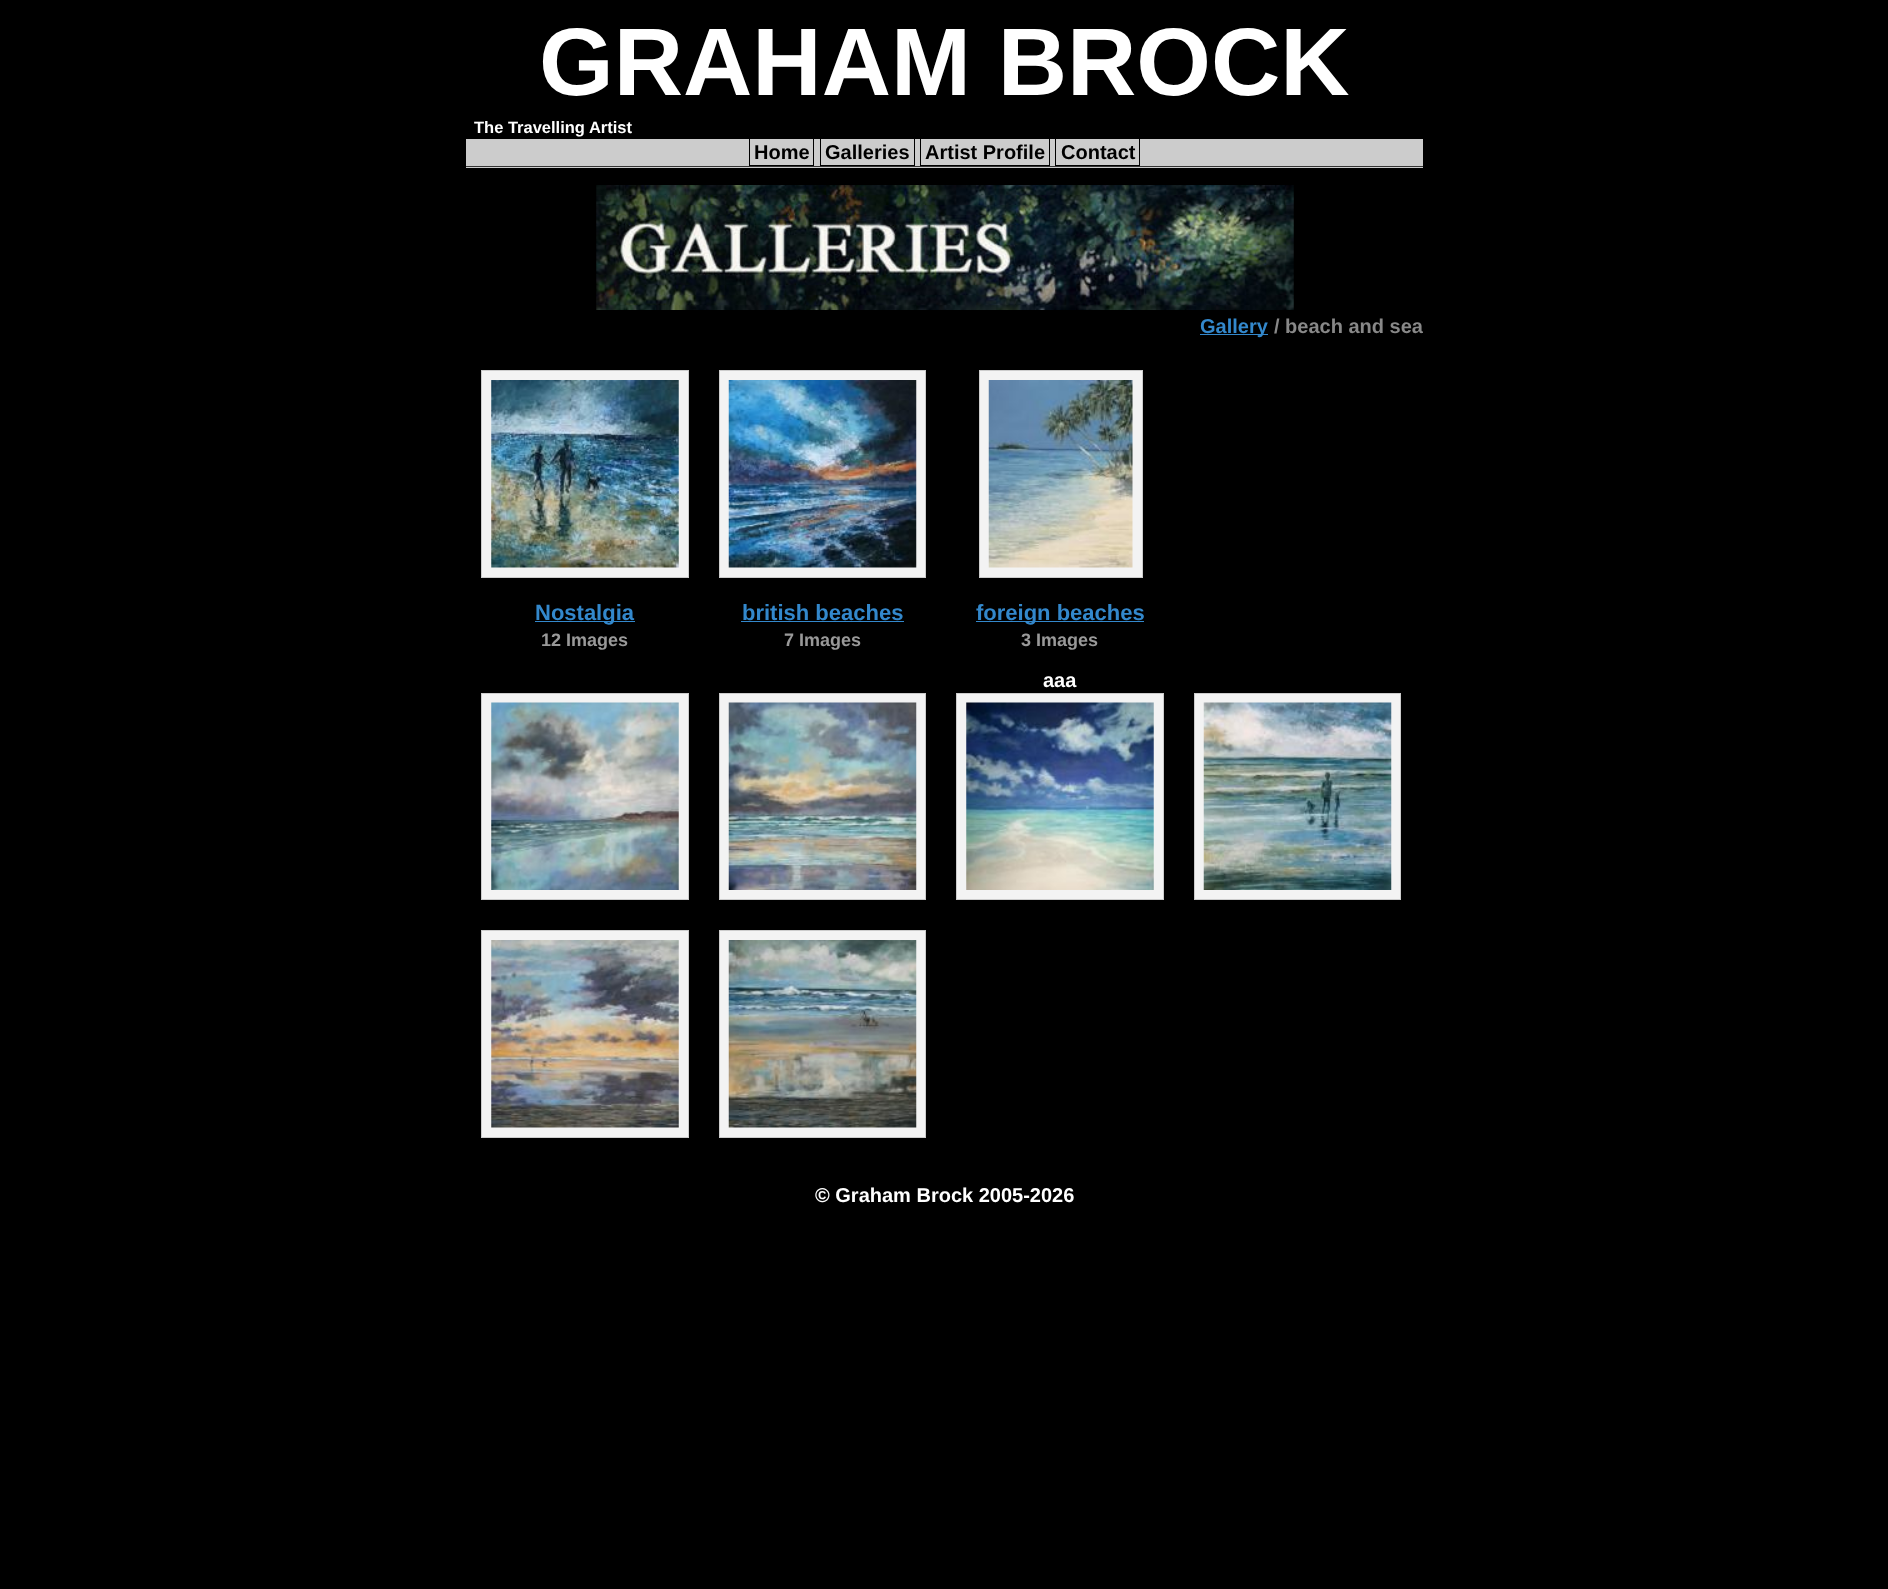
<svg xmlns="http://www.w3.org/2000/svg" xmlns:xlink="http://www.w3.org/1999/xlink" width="1888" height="1589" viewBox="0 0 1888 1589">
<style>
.cls-1{font:bold 96px Liberation Sans;fill:#ffffff}
.cls-2{font:bold 16.5px Liberation Sans;fill:#ffffff}
.cls-3{font:bold 20px Liberation Sans;fill:#000000}
.cls-4{font:bold 20px Liberation Sans;fill:#3388cc}
.cls-5{font:bold 20px Liberation Sans;fill:#888888}
.cls-6{font:bold 22px Liberation Sans;fill:#3388cc}
.cls-7{font:bold 18px Liberation Sans;fill:#999999}
.cls-8{font:bold 20px Liberation Sans;fill:#ffffff}
</style>
<rect width="100%" height="100%" fill="#000000"/>
<rect fill="#cccccc" x="466" y="139" width="957" height="29"/>
<rect fill="#333333" x="466" y="166" width="957" height="1"/>
<rect fill="none" stroke="#000000" x="749.5" y="138.5" width="64" height="27"/>
<rect fill="none" stroke="#000000" x="820.5" y="138.5" width="94" height="27"/>
<rect fill="none" stroke="#000000" x="920.5" y="138.5" width="129" height="27"/>
<rect fill="none" stroke="#000000" x="1055.5" y="138.5" width="84" height="27"/>
<image xlink:href="image0.png" x="596" y="185" width="698" height="125"/>
<rect fill="#3388cc" x="1200" y="334" width="68" height="1"/>
<rect fill="#f3f3f3" stroke="#cccccc" x="481.5" y="370.5" width="207" height="207"/>
<image xlink:href="image1.png" x="491" y="380" width="188" height="188"/>
<rect fill="#3388cc" x="535" y="621" width="100" height="1"/>
<rect fill="#f3f3f3" stroke="#cccccc" x="719.5" y="370.5" width="206" height="207"/>
<image xlink:href="image2.png" x="728" y="380" width="189" height="188"/>
<rect fill="#3388cc" x="741" y="621" width="163" height="1"/>
<rect fill="#f3f3f3" stroke="#cccccc" x="979.5" y="370.5" width="163" height="207"/>
<image xlink:href="image3.png" x="988" y="380" width="145" height="188"/>
<rect fill="#3388cc" x="976" y="621" width="168" height="1"/>
<rect fill="#f3f3f3" stroke="#cccccc" x="481.5" y="693.5" width="207" height="206"/>
<image xlink:href="image4.png" x="491" y="702" width="188" height="188"/>
<rect fill="#f3f3f3" stroke="#cccccc" x="719.5" y="693.5" width="206" height="206"/>
<image xlink:href="image5.png" x="728" y="702" width="189" height="188"/>
<rect fill="#f3f3f3" stroke="#cccccc" x="956.5" y="693.5" width="207" height="206"/>
<image xlink:href="image6.png" x="966" y="702" width="188" height="188"/>
<rect fill="#f3f3f3" stroke="#cccccc" x="1194.5" y="693.5" width="206" height="206"/>
<image xlink:href="image7.png" x="1203" y="702" width="189" height="188"/>
<rect fill="#f3f3f3" stroke="#cccccc" x="481.5" y="930.5" width="207" height="207"/>
<image xlink:href="image8.png" x="491" y="940" width="188" height="188"/>
<rect fill="#f3f3f3" stroke="#cccccc" x="719.5" y="930.5" width="206" height="207"/>
<image xlink:href="image9.png" x="728" y="940" width="189" height="188"/>
<text class="cls-1" x="539" y="95">GRAHAM BROCK</text>
<text class="cls-2" x="474" y="133">The Travelling Artist</text>
<text class="cls-3" x="754" y="159">Home</text>
<text class="cls-3" x="825" y="159">Galleries</text>
<text class="cls-3" x="925" y="159">Artist Profile</text>
<text class="cls-3" x="1061" y="159">Contact</text>
<text class="cls-4" x="1200" y="333">Gallery</text>
<text class="cls-5" x="1274" y="333">/ beach and sea</text>
<text class="cls-6" x="535" y="620">Nostalgia</text>
<text class="cls-7" x="541" y="646">12 Images</text>
<text class="cls-6" x="742" y="620">british beaches</text>
<text class="cls-7" x="784" y="646">7 Images</text>
<text class="cls-6" x="976" y="620">foreign beaches</text>
<text class="cls-7" x="1021" y="646">3 Images</text>
<text class="cls-8" x="1043" y="687">aaa</text>
<text class="cls-8" x="815" y="1202">© Graham Brock 2005-2026</text>
</svg>
